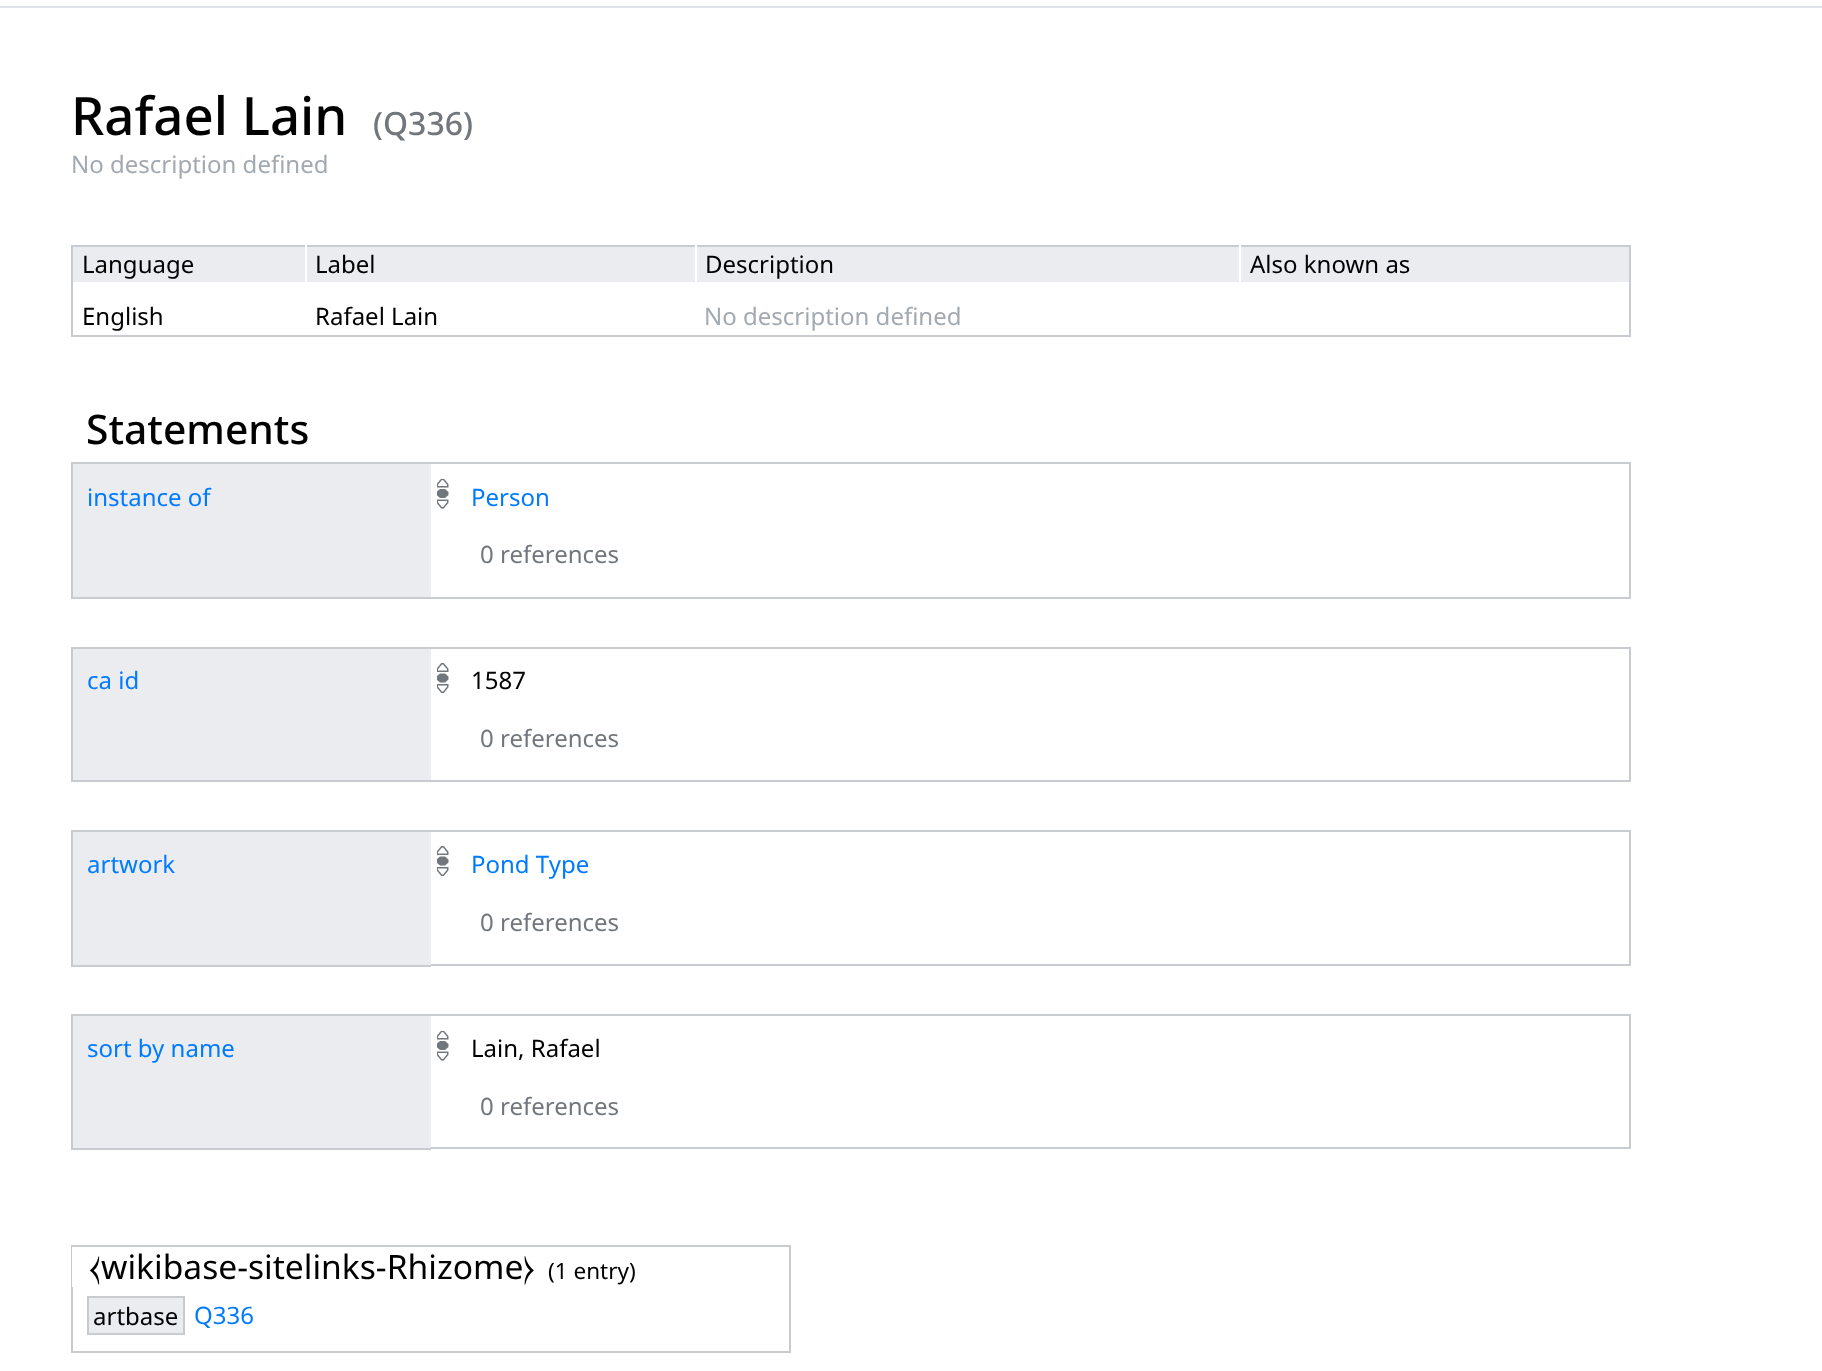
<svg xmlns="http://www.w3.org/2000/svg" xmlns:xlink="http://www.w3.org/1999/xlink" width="1822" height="1371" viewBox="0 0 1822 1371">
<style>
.cls-1{font:500 52.75px Noto Sans;fill:#000000}
.cls-2{font:500 32px Noto Sans;fill:#72777d}
.cls-3{font:24px Noto Sans;fill:#a2a9b1}
.cls-4{font:24px Noto Sans;fill:#000000}
.cls-5{font:500 40.75px Noto Sans;fill:#000000}
.cls-6{font:24px Noto Sans;fill:#007bff}
.cls-7{font:24px Noto Sans;fill:#72777d}
.cls-8{font:33.6px FreeSerif;fill:#000000}
.cls-9{font:33.6px Noto Sans;fill:#000000}
.cls-10{font:22.5px Noto Sans;fill:#000000}
</style>
<rect width="100%" height="100%" fill="#ffffff"/>
<rect fill="#dee2e6" x="0" y="6" width="1822" height="2"/>
<rect fill="#c8ccd1" x="71" y="245" width="1560" height="2"/>
<rect fill="#c8ccd1" x="1629" y="245" width="2" height="91"/>
<rect fill="#c8ccd1" x="71" y="335" width="1560" height="2"/>
<rect fill="#c8ccd1" x="71" y="245" width="2" height="91"/>
<rect fill="#eaecf0" x="73" y="247" width="232" height="35"/>
<rect fill="#ffffff" x="305" y="245" width="2" height="2"/>
<rect fill="#eaecf0" x="307" y="247" width="388" height="35"/>
<rect fill="#ffffff" x="695" y="245" width="2" height="2"/>
<rect fill="#eaecf0" x="697" y="247" width="542" height="35"/>
<rect fill="#ffffff" x="1239" y="245" width="2" height="2"/>
<rect fill="#eaecf0" x="1241" y="247" width="388" height="35"/>
<rect fill="none" stroke="#c8ccd1" stroke-width="2" x="72" y="463" width="1558" height="135"/>
<rect fill="#eaecf0" x="73" y="464" width="358" height="133"/>
<image xlink:href="image0.png" x="437" y="479" width="12" height="30"/>
<rect fill="none" stroke="#c8ccd1" stroke-width="2" x="72" y="648" width="1558" height="133"/>
<rect fill="#eaecf0" x="73" y="649" width="358" height="131"/>
<image xlink:href="image1.png" x="437" y="663" width="12" height="30"/>
<rect fill="none" stroke="#c8ccd1" stroke-width="2" x="72" y="831" width="1558" height="134"/>
<rect fill="#eaecf0" x="73" y="832" width="358" height="133"/>
<rect fill="#c8ccd1" x="71" y="966" width="360" height="1"/>
<image xlink:href="image1.png" x="437" y="846" width="12" height="30"/>
<rect fill="none" stroke="#c8ccd1" stroke-width="2" x="72" y="1015" width="1558" height="133"/>
<rect fill="#eaecf0" x="73" y="1016" width="358" height="132"/>
<rect fill="#c8ccd1" x="71" y="1149" width="360" height="1"/>
<image xlink:href="image0.png" x="437" y="1031" width="12" height="30"/>
<rect fill="none" stroke="#c8ccd1" stroke-width="2" x="72" y="1246" width="718" height="106"/>
<rect fill="#ffffff" x="72" y="1247" width="1" height="40"/>
<rect fill="#eaecf0" stroke="#c8ccd1" stroke-width="2" x="88" y="1297" width="96" height="37"/>
<text class="cls-1" x="71" y="135">Rafael Lain</text>
<text class="cls-2" x="373" y="135">(Q336)</text>
<text class="cls-3" x="71" y="173">No description defined</text>
<text class="cls-4" x="82" y="273">Language</text>
<text class="cls-4" x="315" y="273">Label</text>
<text class="cls-4" x="705" y="273">Description</text>
<text class="cls-4" x="1250" y="273">Also known as</text>
<text class="cls-4" x="82" y="325">English</text>
<text class="cls-4" x="315" y="325">Rafael Lain</text>
<text class="cls-3" x="704" y="325">No description defined</text>
<text class="cls-5" x="86" y="444">Statements</text>
<text class="cls-6" x="87" y="506">instance of</text>
<text class="cls-6" x="471" y="506">Person</text>
<text class="cls-7" x="480" y="563">0 references</text>
<text class="cls-6" x="87" y="689">ca id</text>
<text class="cls-4" x="471" y="689">1587</text>
<text class="cls-7" x="480" y="747">0 references</text>
<text class="cls-6" x="87" y="873">artwork</text>
<text class="cls-6" x="471" y="873">Pond Type</text>
<text class="cls-7" x="480" y="931">0 references</text>
<text class="cls-6" x="87" y="1057">sort by name</text>
<text class="cls-4" x="471" y="1057">Lain, Rafael</text>
<text class="cls-7" x="480" y="1115">0 references</text>
<text class="cls-8" x="89" y="1279">⧼</text>
<text class="cls-9" x="101" y="1279">wikibase-sitelinks-Rhizome</text>
<text class="cls-8" x="523" y="1279">⧽</text>
<text class="cls-10" x="548" y="1279">(1 entry)</text>
<text class="cls-4" x="93" y="1325">artbase</text>
<text class="cls-6" x="194" y="1324">Q336</text>
</svg>
